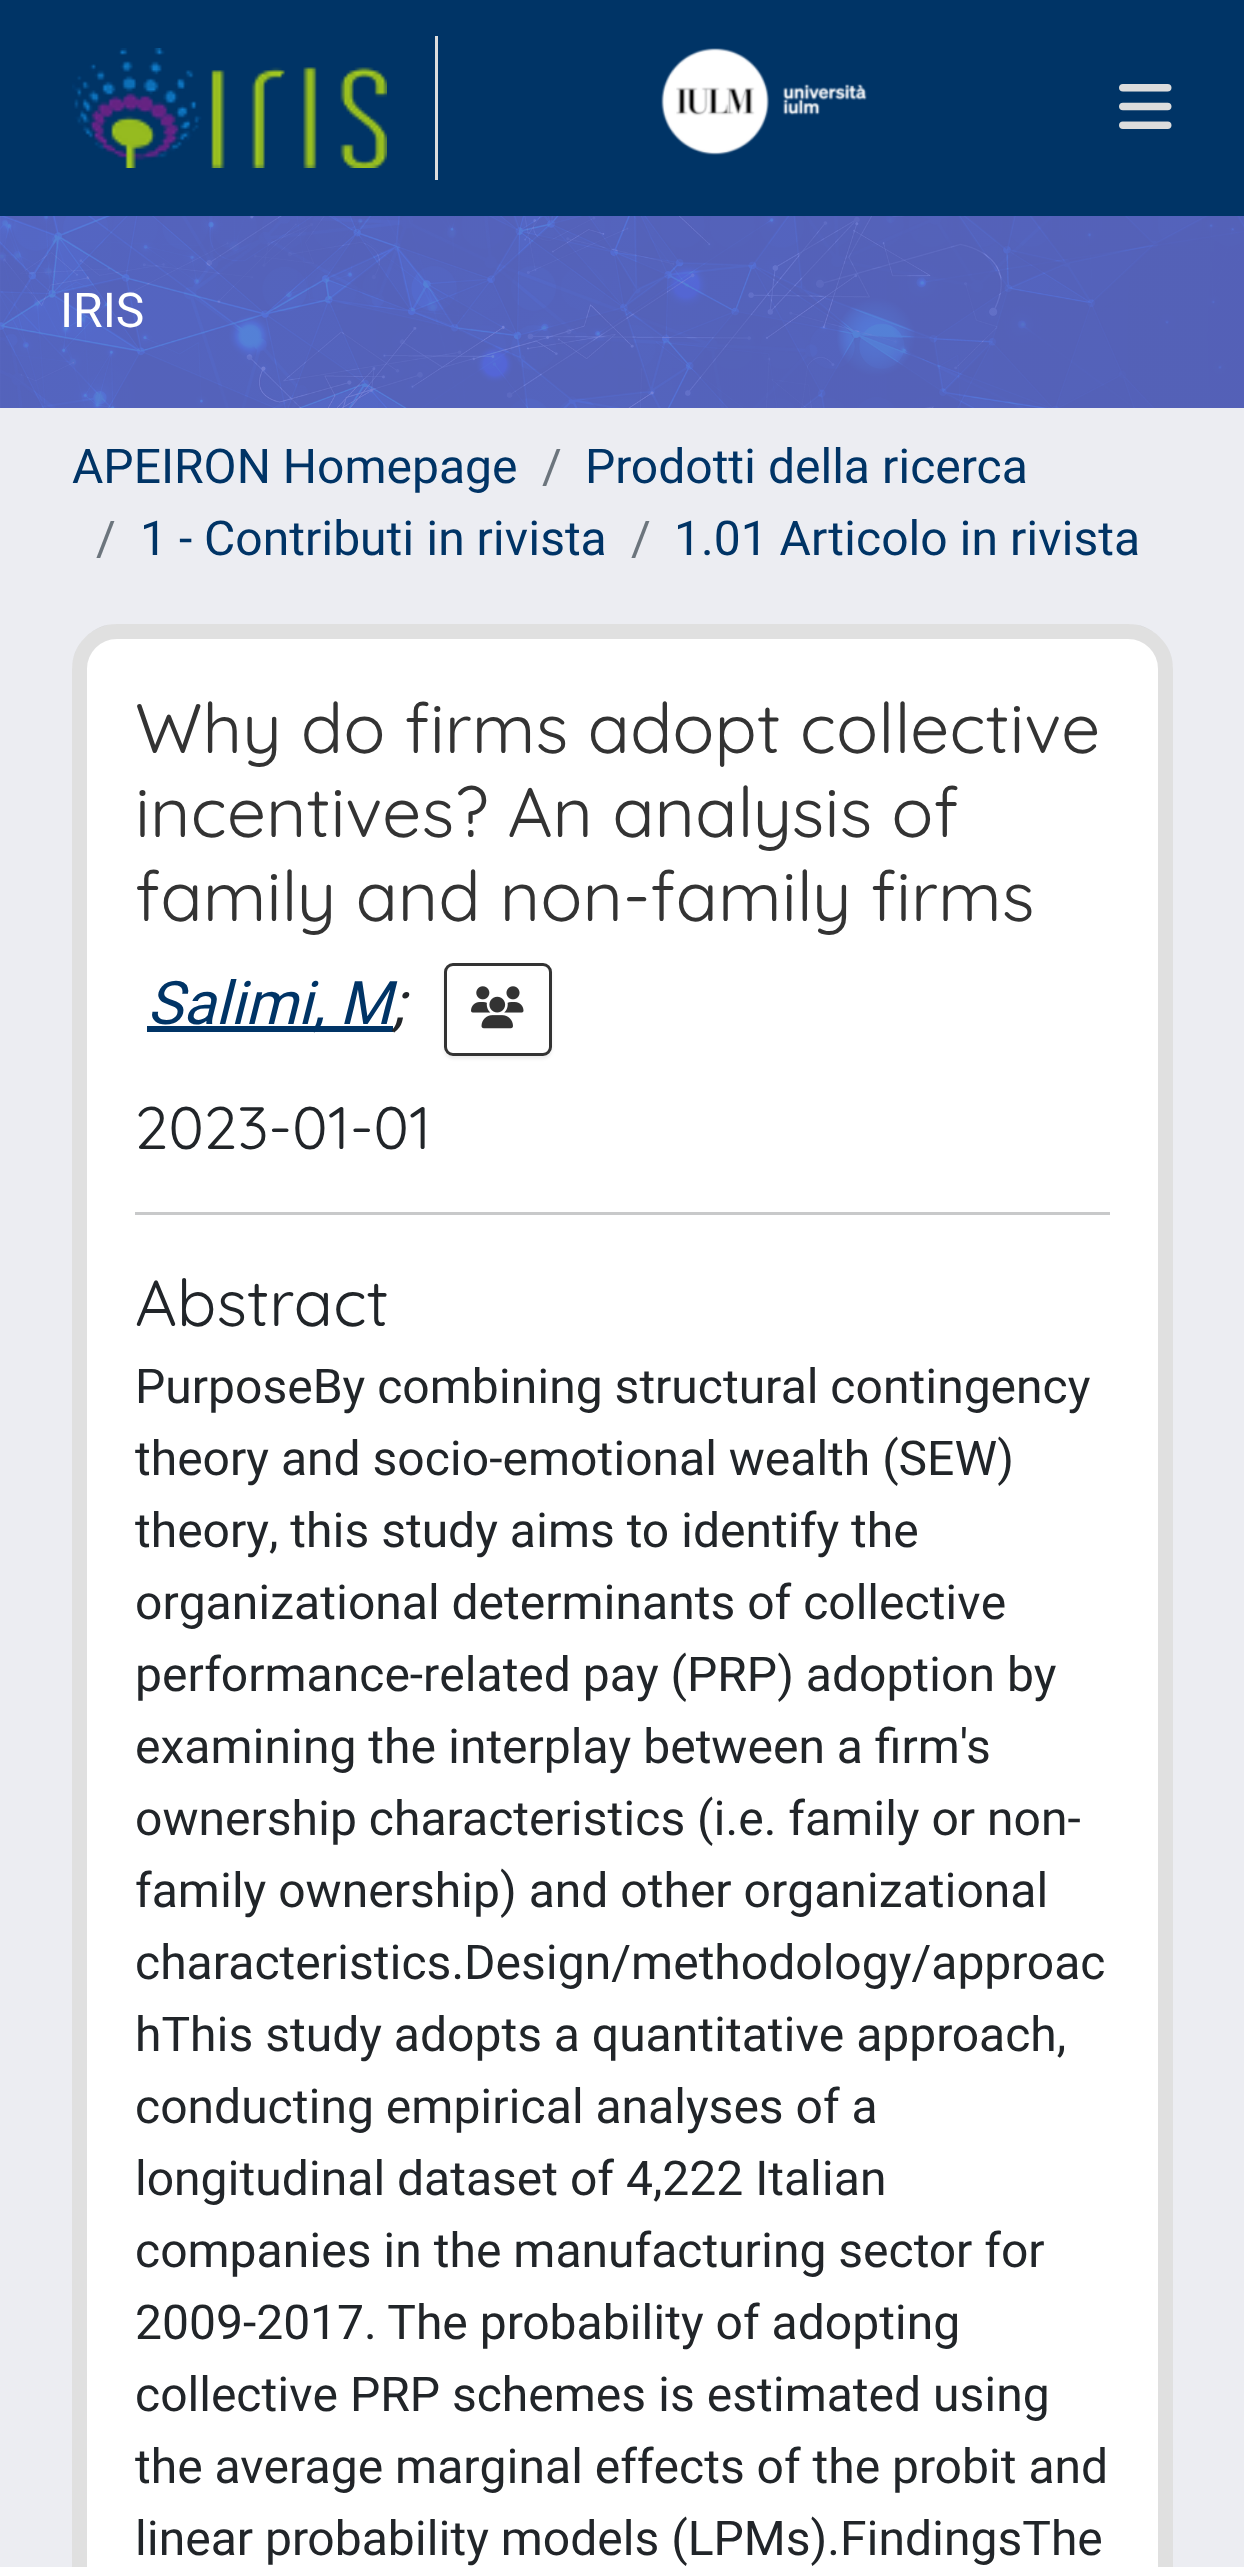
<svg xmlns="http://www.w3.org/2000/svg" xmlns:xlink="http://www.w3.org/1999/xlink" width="1244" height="2567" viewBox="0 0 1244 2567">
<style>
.cls-1{font:48px Heebo;fill:#ffffff}
.cls-2{font:48px Heebo;fill:#003466}
.cls-3{font:48px Heebo;fill:#6c757d}
.cls-4{font:69.9px Quicksand;fill:#333333}
.cls-5{font:italic 60px Heebo;fill:#003466}
.cls-6{font:italic 60px Heebo;fill:#212529}
.cls-7{font:60px Quicksand;fill:#212529}
.cls-8{font:65px Quicksand;fill:#212529}
.cls-9{font:48px Heebo;fill:#212529}
</style>
<defs>
<clipPath id="clip1"><path d="M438 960H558V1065H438ZM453 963H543C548 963 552 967 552 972V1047C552 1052 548 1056 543 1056H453C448 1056 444 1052 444 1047V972C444 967 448 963 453 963Z" clip-rule="evenodd"/></clipPath>
</defs>
<rect width="100%" height="100%" fill="#ecedf2"/>
<rect fill="#003466" x="0" y="0" width="1244" height="216"/>
<rect fill="#dddddd" x="435" y="36" width="3" height="144"/>
<image xlink:href="image0.png" x="72" y="48" width="315" height="120"/>
<image xlink:href="image1.png" x="661" y="48" width="206" height="107"/>
<image xlink:href="image2.png" x="1119" y="84" width="53" height="45"/>
<image xlink:href="image3.png" x="0" y="216" width="1244" height="192"/>
<rect fill="#ffffff" x="72" y="624" width="1101" height="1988" rx="45"/>
<rect fill="none" stroke="#000000" stroke-opacity="0.12" stroke-width="15" x="79.5" y="631.5" width="1086" height="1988" rx="37.5"/>
<rect fill="#003466" x="147" y="1026" width="246" height="6"/>
<g clip-path="url(#clip1)">
<rect fill="#000000" fill-opacity="0.07" filter="blur(1.5px)" x="444" y="966" width="108" height="93" rx="9"/>
</g>
<rect fill="none" stroke="#333333" stroke-width="3" x="445.5" y="964.5" width="105" height="90" rx="7.5"/>
<image xlink:href="image4.png" x="471" y="986" width="53" height="43"/>
<rect fill="#c8c9ca" x="135" y="1212" width="975" height="3"/>
<text class="cls-1" x="60" y="327">IRIS</text>
<text class="cls-2" x="72" y="483">APEIRON Homepage</text>
<text class="cls-3" x="542" y="483">/</text>
<text class="cls-2" x="585" y="483">Prodotti della ricerca</text>
<text class="cls-3" x="96" y="555">/</text>
<text class="cls-2" x="140" y="555">1 - Contributi in rivista</text>
<text class="cls-3" x="631" y="555">/</text>
<text class="cls-2" x="674" y="555">1.01 Articolo in rivista</text>
<text class="cls-4"><tspan x="135" y="753">Why do firms adopt collective</tspan><tspan x="135" y="837">incentives? An analysis of</tspan><tspan x="135" y="921">family and non-family firms</tspan></text>
<text class="cls-5" x="147" y="1024">Salimi, M</text>
<text class="cls-6" x="392" y="1024">;</text>
<text class="cls-7" x="135" y="1149">2023-01-01</text>
<text class="cls-8" x="135" y="1326">Abstract</text>
<text class="cls-9"><tspan x="135" y="1403">PurposeBy combining structural contingency</tspan><tspan x="135" y="1475">theory and socio-emotional wealth (SEW)</tspan><tspan x="135" y="1547">theory, this study aims to identify the</tspan><tspan x="135" y="1619">organizational determinants of collective</tspan><tspan x="135" y="1691">performance-related pay (PRP) adoption by</tspan><tspan x="135" y="1763">examining the interplay between a firm's</tspan><tspan x="135" y="1835">ownership characteristics (i.e. family or non-</tspan><tspan x="135" y="1907">family ownership) and other organizational</tspan><tspan x="135" y="1979">characteristics.Design/methodology/approac</tspan><tspan x="135" y="2051">hThis study adopts a quantitative approach,</tspan><tspan x="135" y="2123">conducting empirical analyses of a</tspan><tspan x="135" y="2195">longitudinal dataset of 4,222 Italian</tspan><tspan x="135" y="2267">companies in the manufacturing sector for</tspan><tspan x="135" y="2339">2009-2017. The probability of adopting</tspan><tspan x="135" y="2411">collective PRP schemes is estimated using</tspan><tspan x="135" y="2483">the average marginal effects of the probit and</tspan><tspan x="135" y="2555">linear probability models (LPMs).FindingsThe</tspan></text>
</svg>
